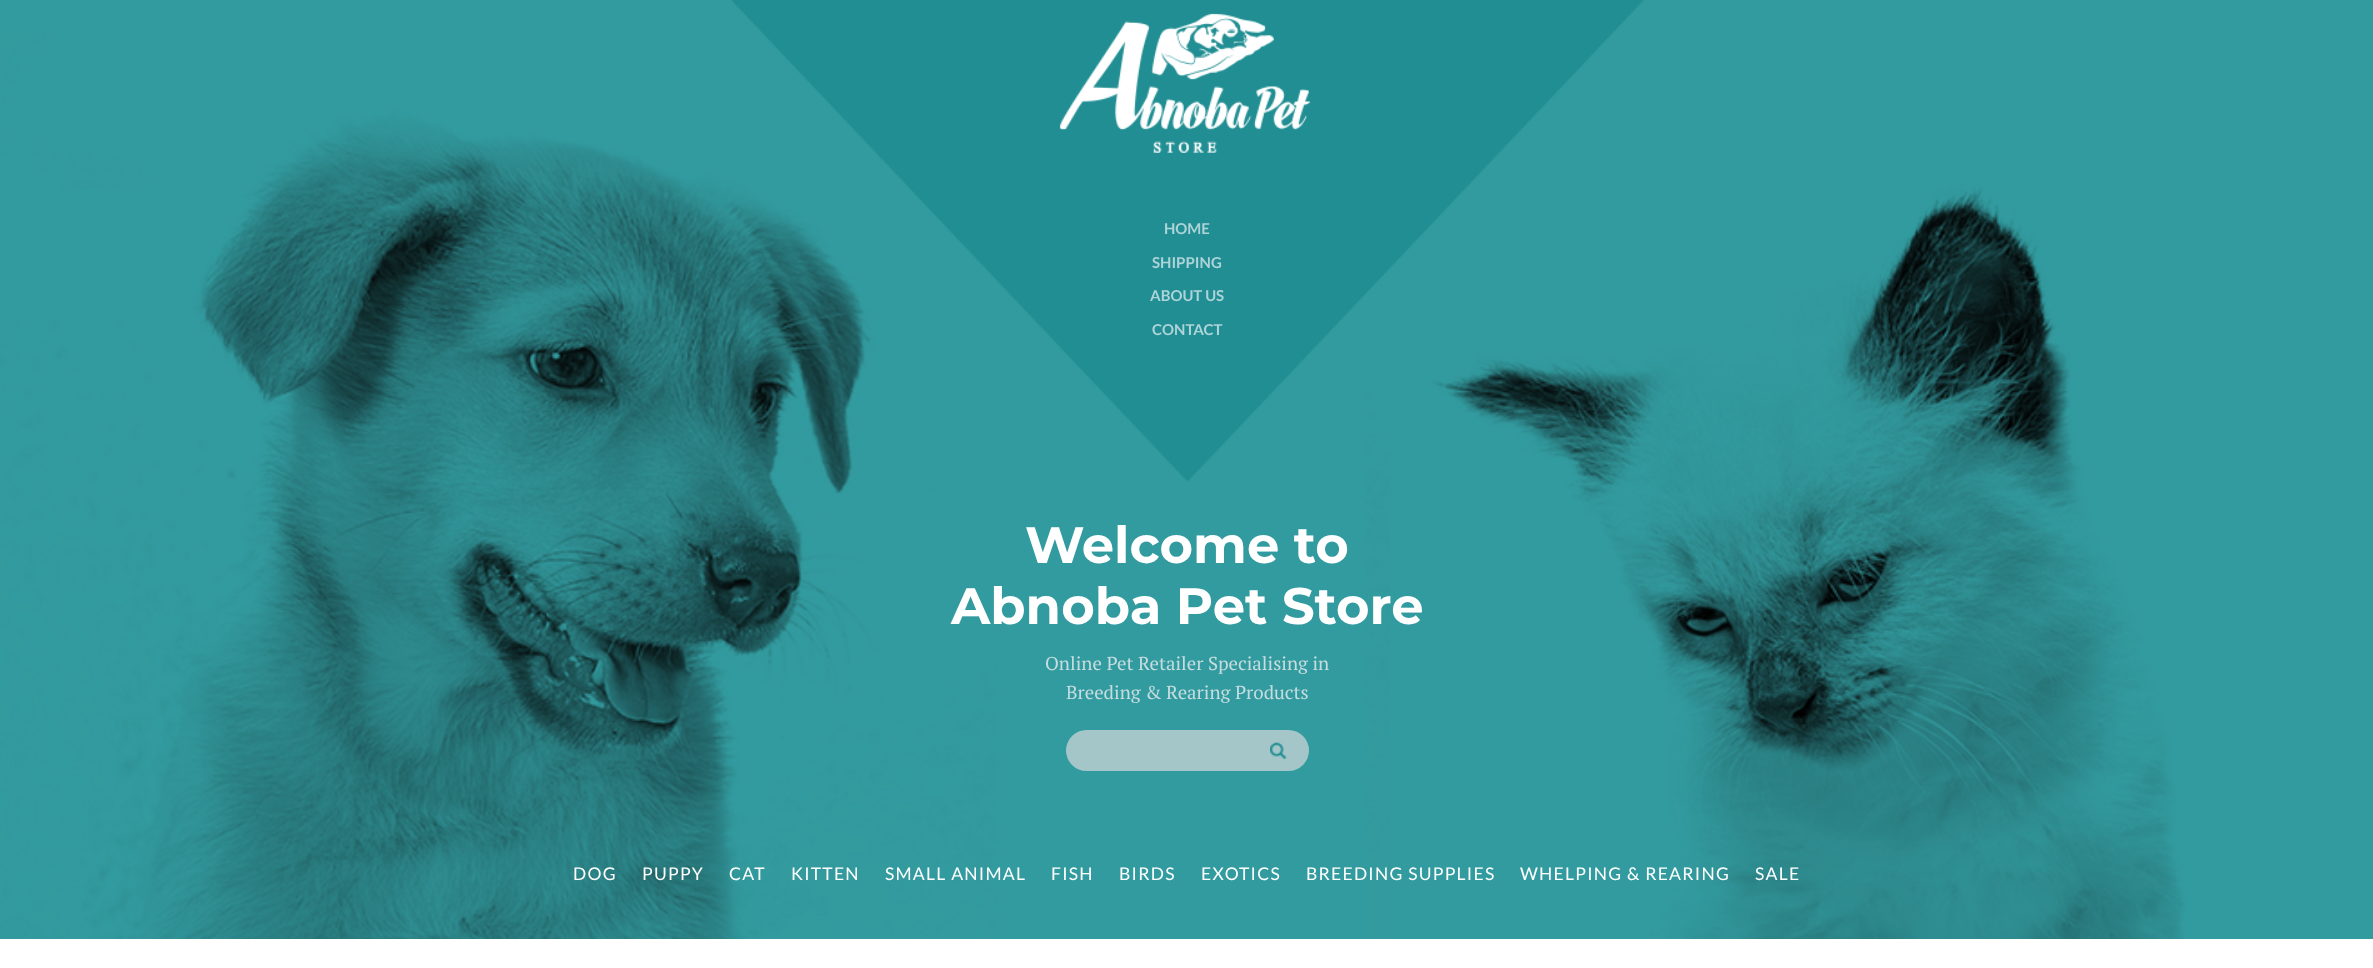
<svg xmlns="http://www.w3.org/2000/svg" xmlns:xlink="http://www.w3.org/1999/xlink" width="2373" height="968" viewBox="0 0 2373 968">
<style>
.cls-1{font:bold 15px Lato;fill:#add4d9}
.cls-2{font:bold 51.25px Montserrat;fill:#ffffff}
.cls-3{font:18.75px PT Serif;fill:#c6dddf}
.cls-4{font:17.5px Lato;letter-spacing:1.25px;fill:#ffffff}
</style>
<rect width="100%" height="100%" fill="#ffffff"/>
<image xlink:href="image0.png" x="0" y="0" width="2373" height="939"/>
<image xlink:href="image1.png" x="731" y="0" width="913" height="482"/>
<image xlink:href="image2.png" x="1059" y="13" width="252" height="140"/>
<rect fill="#a5c6c8" x="1066" y="730" width="243" height="41" rx="20.5"/>
<image xlink:href="image3.png" x="1270" y="742" width="17" height="17"/>
<text class="cls-1" x="1164" y="234">HOME</text>
<text class="cls-1" x="1152" y="268">SHIPPING</text>
<text class="cls-1" x="1150" y="301">ABOUT US</text>
<text class="cls-1" x="1152" y="335">CONTACT</text>
<text class="cls-2" x="1025" y="563">Welcome to</text>
<text class="cls-2" x="951" y="624">Abnoba Pet Store</text>
<text class="cls-3" x="1045" y="670">Online Pet Retailer Specialising in</text>
<text class="cls-3" x="1066" y="699">Breeding &amp; Rearing Products</text>
<text class="cls-4" x="573" y="880">DOG</text>
<text class="cls-4" x="642" y="880">PUPPY</text>
<text class="cls-4" x="729" y="880">CAT</text>
<text class="cls-4" x="791" y="880">KITTEN</text>
<text class="cls-4" x="885" y="880">SMALL ANIMAL</text>
<text class="cls-4" x="1051" y="880">FISH</text>
<text class="cls-4" x="1119" y="880">BIRDS</text>
<text class="cls-4" x="1201" y="880">EXOTICS</text>
<text class="cls-4" x="1306" y="880">BREEDING SUPPLIES</text>
<text class="cls-4" x="1520" y="880">WHELPING &amp; REARING</text>
<text class="cls-4" x="1755" y="880">SALE</text>
</svg>
